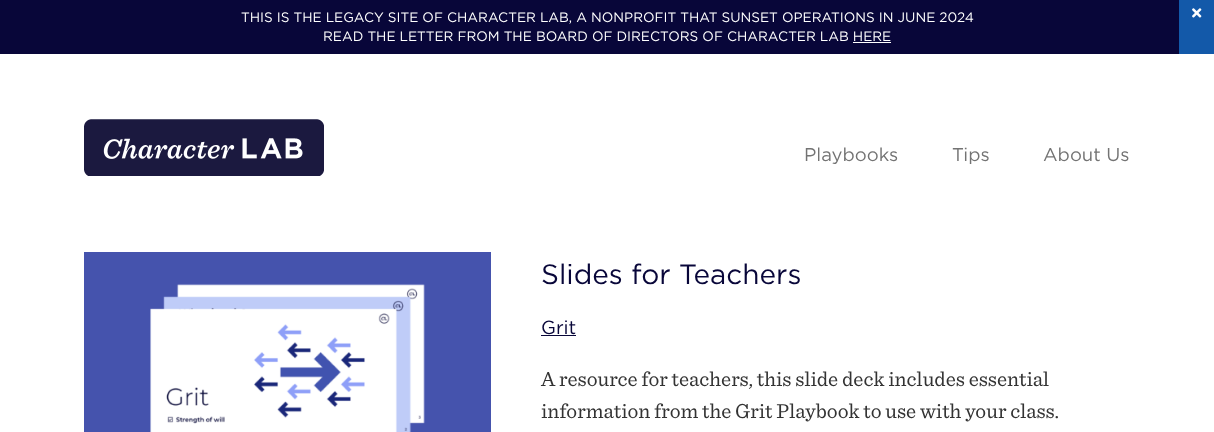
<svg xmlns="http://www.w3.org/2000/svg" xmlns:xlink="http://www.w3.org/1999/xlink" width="1214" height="432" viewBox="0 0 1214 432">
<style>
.cls-1{font:13.6px Gotham;fill:#ffffff}
.cls-2{font:18.5px Gotham;fill:#737373}
.cls-3{font:28px Gotham;fill:#080639}
.cls-4{font:19px Gotham;fill:#080639}
.cls-5{font:21.2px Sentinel;fill:#333333}
</style>
<rect width="100%" height="100%" fill="#ffffff"/>
<rect fill="#080639" x="0" y="0" width="1179" height="54"/>
<rect fill="#1359a9" x="1179" y="0" width="35" height="54"/>
<image xlink:href="image0.png" x="1192" y="8" width="10" height="10"/>
<rect fill="#ffffff" x="853" y="42" width="38" height="1"/>
<image xlink:href="image1.png" x="84" y="119" width="240" height="57"/>
<image xlink:href="image2.png" x="84" y="252" width="407" height="180"/>
<rect fill="#080639" x="541" y="335" width="35" height="1"/>
<text class="cls-1" x="241" y="22">THIS IS THE LEGACY SITE OF CHARACTER LAB, A NONPROFIT THAT SUNSET OPERATIONS IN JUNE 2024</text>
<text class="cls-1" x="323" y="41">READ THE LETTER FROM THE BOARD OF DIRECTORS OF CHARACTER LAB HERE</text>
<text class="cls-2" x="804" y="161">Playbooks</text>
<text class="cls-2" x="952" y="161">Tips</text>
<text class="cls-2" x="1043" y="161">About Us</text>
<text class="cls-3" x="541" y="284">Slides for Teachers</text>
<text class="cls-4" x="541" y="334">Grit</text>
<text class="cls-5"><tspan x="541" y="386">A resource for teachers, this slide deck includes essential</tspan><tspan x="541" y="418">information from the Grit Playbook to use with your class.</tspan></text>
</svg>
